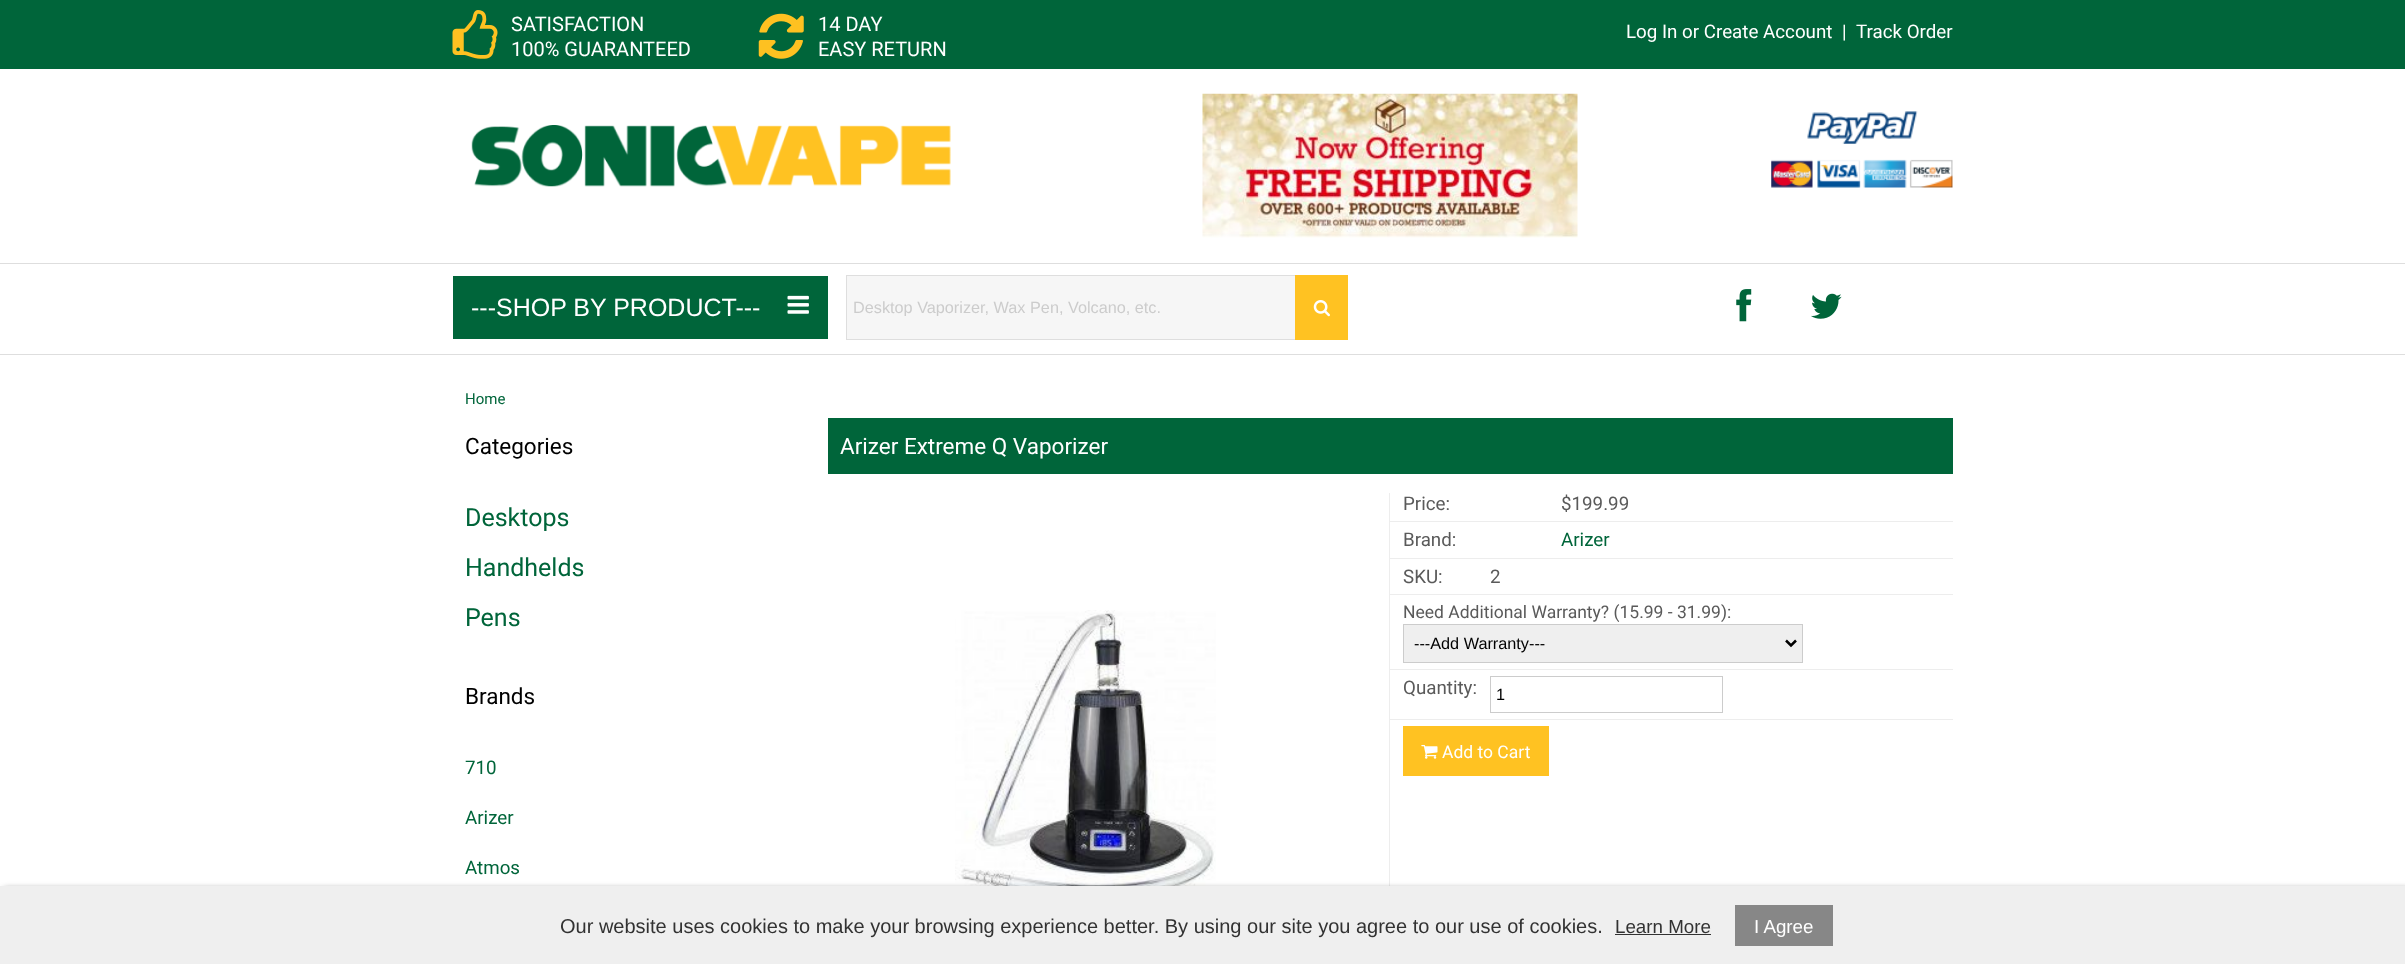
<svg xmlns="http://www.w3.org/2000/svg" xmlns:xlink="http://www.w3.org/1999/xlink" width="2405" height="964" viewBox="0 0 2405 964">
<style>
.cls-1{font:20px Roboto;fill:#ffffff}
.cls-2{font:18.75px Roboto;fill:#ffffff}
.cls-3{font:25px Liberation Sans;fill:#ffffff}
.cls-4{font:16.25px Liberation Sans;fill:#cccccc}
.cls-5{font:15px Roboto;fill:#00653a}
.cls-6{font:22.5px Roboto;fill:#000000}
.cls-7{font:25px Roboto;fill:#00653a}
.cls-8{font:18.75px Roboto;fill:#00653a}
.cls-9{font:22.5px Roboto;fill:#ffffff}
.cls-10{font:18.75px Roboto;fill:#5a5a5a}
.cls-11{font:17.5px Roboto;fill:#5a5a5a}
.cls-12{font:16.25px Liberation Sans;fill:#000000}
.cls-13{font:17.5px Roboto;fill:#ffffff}
.cls-14{font:20px Liberation Sans;fill:#323232}
.cls-15{font:18.75px Liberation Sans;fill:#323232}
.cls-16{font:18.75px Liberation Sans;fill:#ffffff}
</style>
<defs>
<clipPath id="clip1"><rect x="853" y="298" width="437" height="18"/></clipPath>
</defs>
<rect width="100%" height="100%" fill="#ffffff"/>
<rect fill="#00653a" x="0" y="0" width="2405" height="69"/>
<image xlink:href="image0.png" x="452" y="10" width="46" height="49"/>
<image xlink:href="image1.png" x="758" y="13" width="46" height="46"/>
<image xlink:href="image2.png" x="471" y="125" width="480" height="62"/>
<image xlink:href="image3.png" x="1202" y="93" width="376" height="145"/>
<image xlink:href="image4.png" x="1771" y="111" width="182" height="77"/>
<rect fill="#dedede" x="0" y="263" width="2405" height="1"/>
<rect fill="#dedede" x="0" y="354" width="2405" height="1"/>
<rect fill="#00653a" x="453" y="276" width="375" height="63"/>
<image xlink:href="image5.png" x="787" y="295" width="22" height="19"/>
<rect fill="#f6f6f6" stroke="#dedede" x="846.5" y="275.5" width="449" height="64"/>
<rect fill="#ffc222" x="1295" y="275" width="53" height="65"/>
<image xlink:href="image6.png" x="1313" y="300" width="17" height="17"/>
<image xlink:href="image7.png" x="1736" y="289" width="16" height="33"/>
<image xlink:href="image8.png" x="1811" y="293" width="31" height="26"/>
<rect fill="#00653a" x="828" y="418" width="1125" height="56"/>
<rect fill="#ededed" x="1389" y="493" width="1" height="393"/>
<image xlink:href="image9.png" x="955" y="610" width="261" height="276"/>
<rect fill="#ededed" x="1390" y="521" width="563" height="1"/>
<rect fill="#ededed" x="1390" y="558" width="563" height="1"/>
<rect fill="#ededed" x="1390" y="594" width="563" height="1"/>
<rect fill="#ededed" x="1390" y="669" width="563" height="1"/>
<rect fill="#efefef" stroke="#cccccc" x="1403.5" y="624.5" width="399" height="38"/>
<path fill="none" stroke="#000000" stroke-width="2.5" d="M1786 640.5L1791 645.5L1796 640.5"/>
<rect fill="#ededed" x="1390" y="719" width="563" height="1"/>
<rect fill="none" stroke="#cccccc" x="1490.5" y="676.5" width="232" height="36"/>
<rect fill="#ffc222" x="1403" y="726" width="146" height="50"/>
<image xlink:href="image10.png" x="1421" y="745" width="17" height="14"/>
<rect fill="#000000" fill-opacity="0.6" filter="blur(3px)" x="4" y="889" width="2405" height="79"/>
<rect fill="#efefef" x="0" y="886" width="2405" height="78"/>
<rect fill="#323232" x="1615" y="934" width="96" height="1"/>
<rect fill="#878787" x="1735" y="905" width="98" height="41"/>
<text class="cls-1"><tspan x="511" y="31">SATISFACTION</tspan><tspan x="511" y="56">100% GUARANTEED</tspan></text>
<text class="cls-1"><tspan x="818" y="31">14 DAY</tspan><tspan x="818" y="56">EASY RETURN</tspan></text>
<text class="cls-2" x="1626" y="38">Log In or Create Account</text>
<text class="cls-2" x="1842" y="38">|</text>
<text class="cls-2" x="1856" y="38">Track Order</text>
<text class="cls-3" x="471" y="316">---SHOP BY PRODUCT---</text>
<g clip-path="url(#clip1)">
<text class="cls-4" x="853" y="313">Desktop Vaporizer, Wax Pen, Volcano, etc.</text>
</g>
<text class="cls-5" x="465" y="404">Home</text>
<text class="cls-6" x="465" y="454">Categories</text>
<text class="cls-7" x="465" y="526">Desktops</text>
<text class="cls-7" x="465" y="576">Handhelds</text>
<text class="cls-7" x="465" y="626">Pens</text>
<text class="cls-6" x="465" y="704">Brands</text>
<text class="cls-8" x="465" y="774">710</text>
<text class="cls-8" x="465" y="824">Arizer</text>
<text class="cls-8" x="465" y="874">Atmos</text>
<text class="cls-9" x="840" y="454">Arizer Extreme Q Vaporizer</text>
<text class="cls-10" x="1403" y="510">Price:</text>
<text class="cls-10" x="1561" y="510">$199.99</text>
<text class="cls-10" x="1403" y="546">Brand:</text>
<text class="cls-8" x="1561" y="546">Arizer</text>
<text class="cls-10" x="1403" y="583">SKU:</text>
<text class="cls-10" x="1490" y="583">2</text>
<text class="cls-11" x="1403" y="618">Need Additional Warranty? (15.99 - 31.99):</text>
<text class="cls-12" x="1414" y="649">---Add Warranty---</text>
<text class="cls-10" x="1403" y="694">Quantity:</text>
<text class="cls-12" x="1496" y="700">1</text>
<text class="cls-13" x="1442" y="758">Add to Cart</text>
<text class="cls-14" x="560" y="933">Our website uses cookies to make your browsing experience better. By using our site you agree to our use of cookies.</text>
<text class="cls-15" x="1615" y="933">Learn More</text>
<text class="cls-16" x="1754" y="933">I Agree</text>
</svg>
